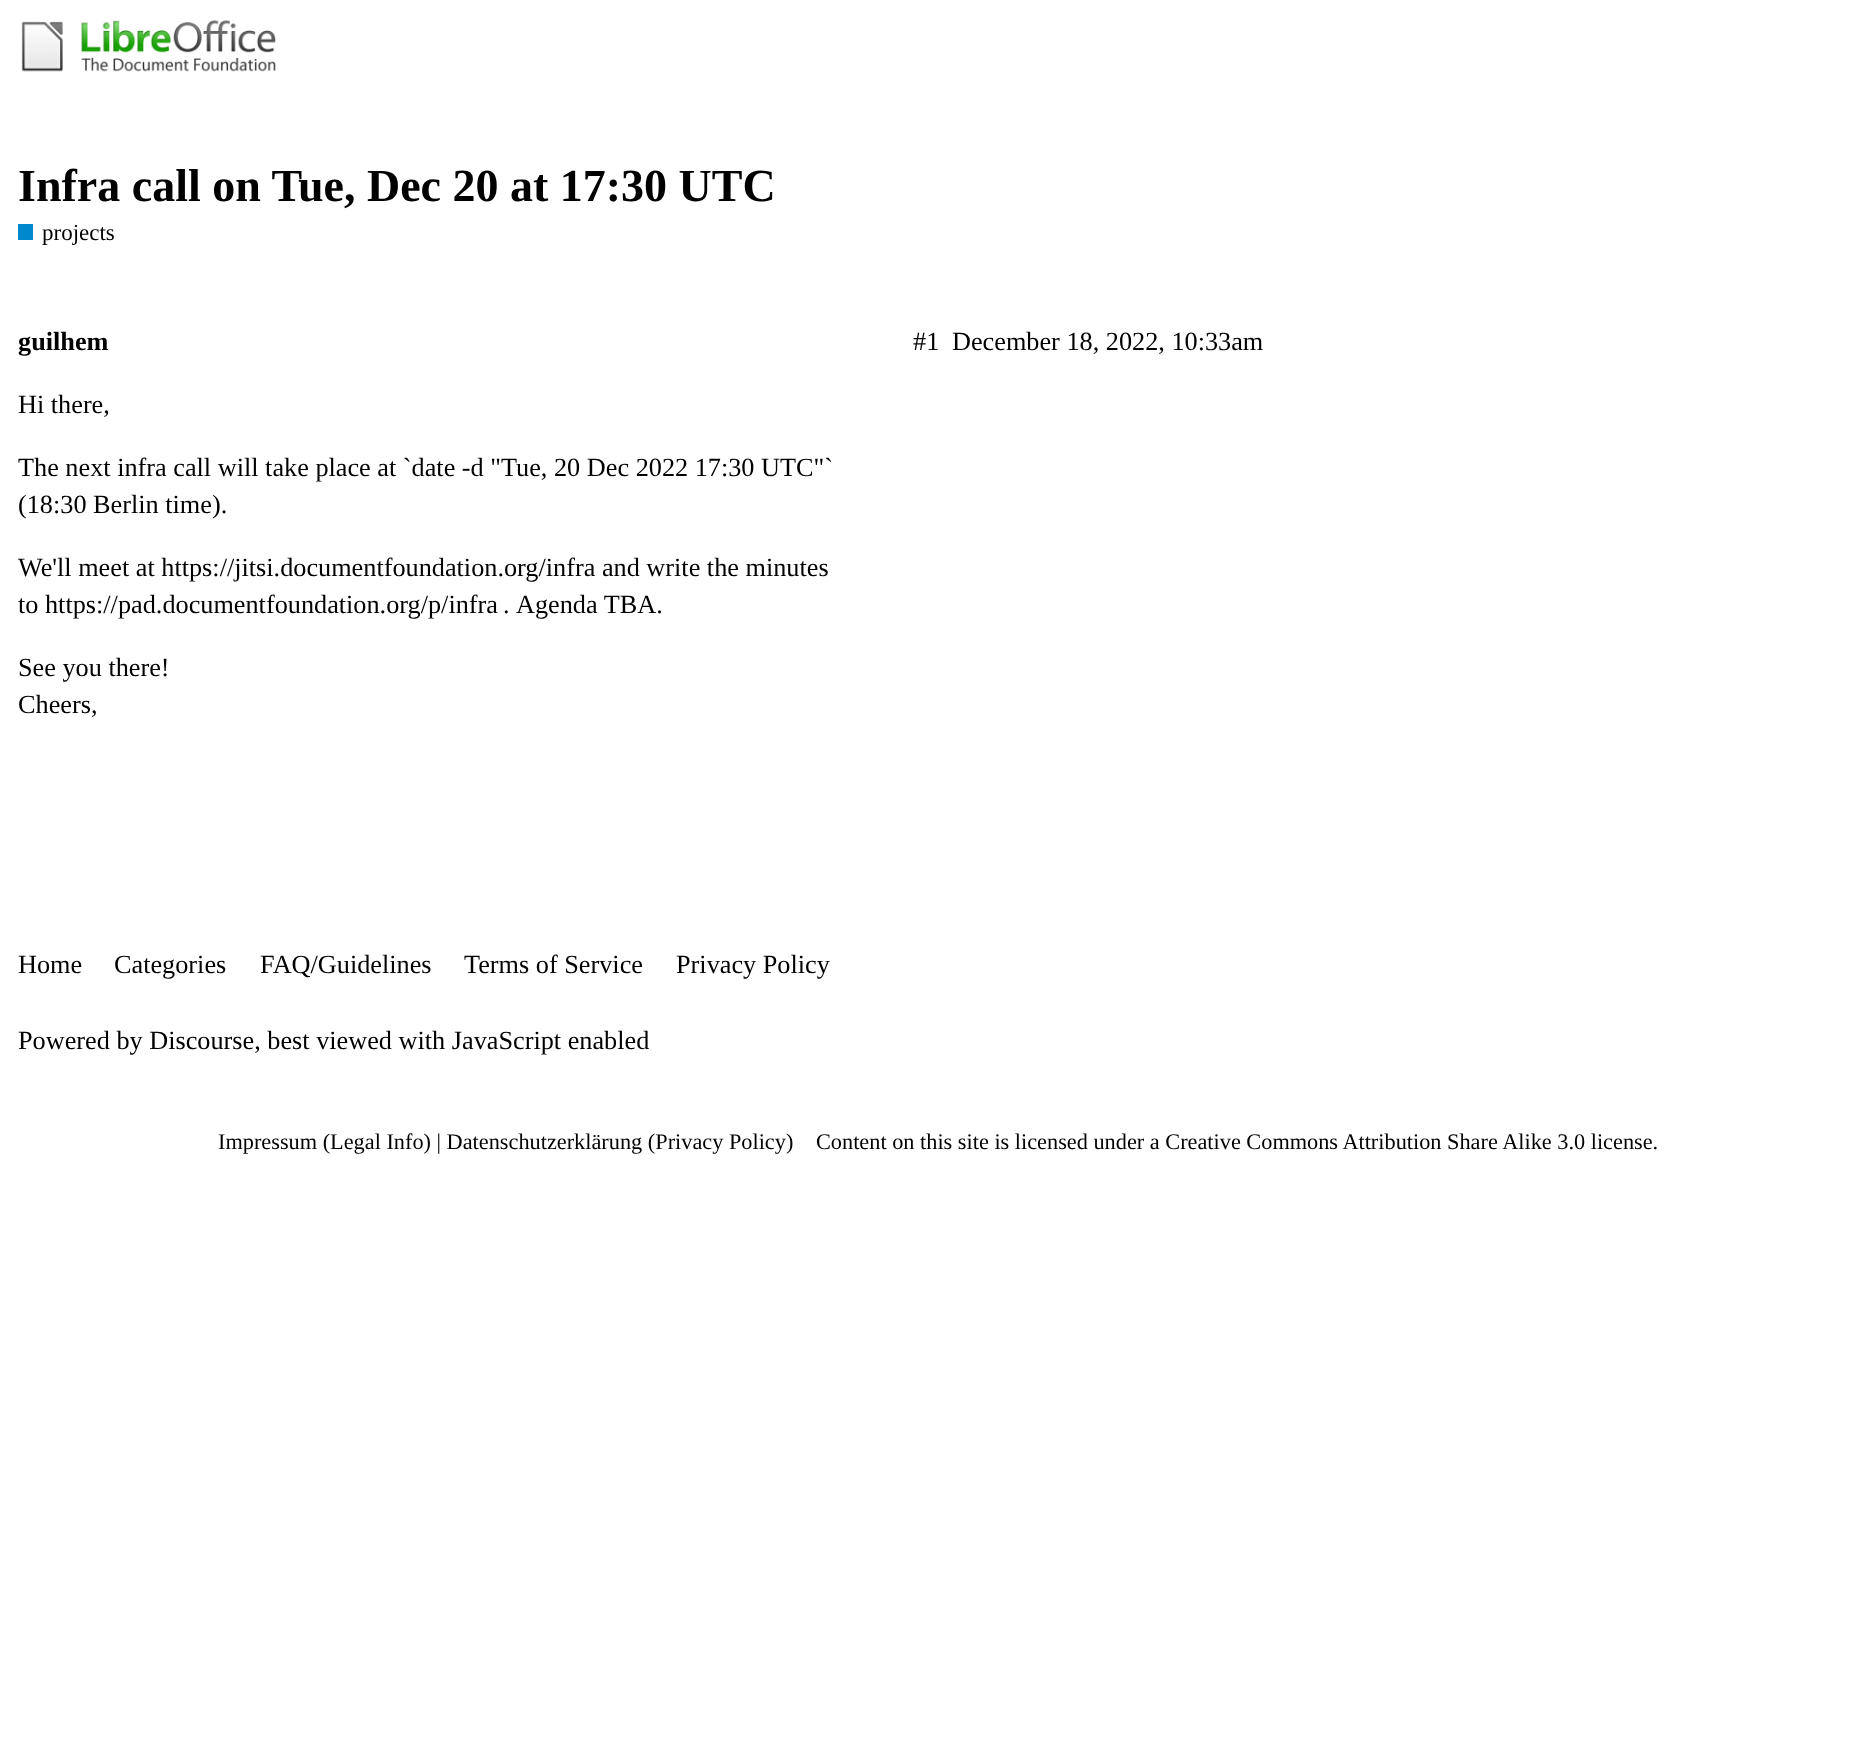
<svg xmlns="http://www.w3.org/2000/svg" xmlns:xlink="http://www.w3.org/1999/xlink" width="1875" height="1745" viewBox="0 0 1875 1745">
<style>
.cls-1{font:bold 46px Liberation Serif;fill:#000000}
.cls-2{font:23px Liberation Serif;fill:#000000}
.cls-3{font:bold 26.25px Liberation Serif;fill:#000000}
.cls-4{font:26.25px Liberation Serif;fill:#000000}
.cls-5{font:22.3px Liberation Serif;fill:#000000}
</style>
<rect width="100%" height="100%" fill="#ffffff"/>
<image xlink:href="image0.png" x="21" y="20" width="255" height="52"/>
<rect fill="#0088cc" x="18" y="224" width="15" height="16"/>
<text class="cls-1" x="18" y="201">Infra call on Tue, Dec 20 at 17:30 UTC</text>
<text class="cls-2" x="42" y="240">projects</text>
<text class="cls-3" x="18" y="350">guilhem</text>
<text class="cls-4" x="913" y="350">#1</text>
<text class="cls-4" x="952" y="350">December 18, 2022, 10:33am</text>
<text class="cls-4" x="18" y="413">Hi there,</text>
<text class="cls-4"><tspan x="18" y="476">The next infra call will take place at `date -d "Tue, 20 Dec 2022 17:30 UTC"`</tspan><tspan x="18" y="513">(18:30 Berlin time).</tspan></text>
<text class="cls-4"><tspan x="18" y="576">We'll meet at https://jitsi.documentfoundation.org/infra and write the minutes</tspan><tspan x="18" y="613">to https://pad.documentfoundation.org/p/infra</tspan></text>
<text class="cls-4" x="503" y="613">.</text>
<text class="cls-4" x="516" y="613">Agenda TBA.</text>
<text class="cls-4"><tspan x="18" y="676">See you there!</tspan><tspan x="18" y="713">Cheers,</tspan></text>
<text class="cls-4" x="18" y="973">Home</text>
<text class="cls-4" x="114" y="973">Categories</text>
<text class="cls-4" x="260" y="973">FAQ/Guidelines</text>
<text class="cls-4" x="464" y="973">Terms of Service</text>
<text class="cls-4" x="676" y="973">Privacy Policy</text>
<text class="cls-4" x="18" y="1049">Powered by Discourse, best viewed with JavaScript enabled</text>
<text class="cls-5" x="218" y="1149">Impressum (Legal Info) | Datenschutzerklärung (Privacy Policy)</text>
<text class="cls-5" x="816" y="1149">Content on this site is licensed under a Creative Commons Attribution Share Alike 3.0 license.</text>
</svg>
